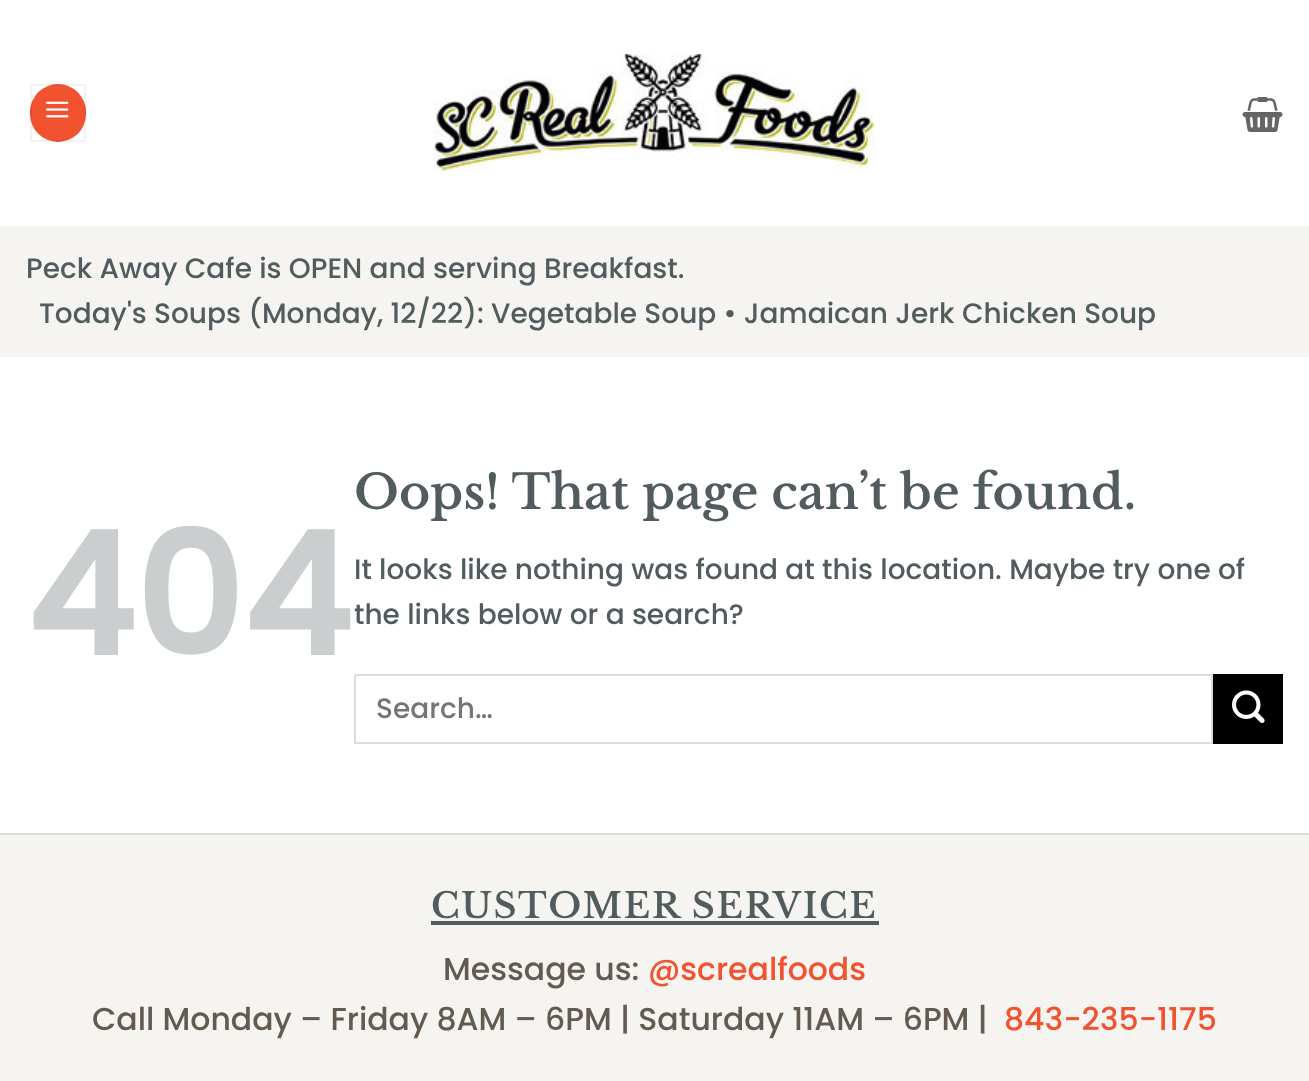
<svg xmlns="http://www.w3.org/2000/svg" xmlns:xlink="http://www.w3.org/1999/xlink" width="1309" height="1081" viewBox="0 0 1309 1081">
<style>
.cls-1{font:500 28px Poppins;fill:#515c5e}
.cls-2{font:bold 168px Poppins;fill:#cbcecf}
.cls-3{font:600 47.6px Libre Baskerville;fill:#515c5e}
.cls-4{font:500 28px Poppins;fill:#757575}
.cls-5{font:600 35px Libre Baskerville;letter-spacing:1.75px;fill:#515c5e}
.cls-6{font:500 31.5px Poppins;fill:#635a52}
.cls-7{font:500 31.5px Poppins;fill:#f15230}
</style>
<rect width="100%" height="100%" fill="#ffffff"/>
<rect fill="#f15230" x="30" y="84" width="56" height="58" rx="28"/>
<rect fill="none" stroke="#000000" stroke-opacity="0.05" stroke-width="2" x="31" y="85" width="54" height="56"/>
<image xlink:href="image0.png" x="46" y="101" width="23" height="17"/>
<image xlink:href="image1.png" x="434" y="54" width="441" height="118"/>
<image xlink:href="image2.png" x="1242" y="97" width="41" height="35"/>
<rect fill="#f5f4f0" x="0" y="226" width="1309" height="131"/>
<rect fill="none" stroke="#dddddd" stroke-width="2" x="355" y="675" width="857" height="68"/>
<rect fill="#000000" x="1213" y="674" width="70" height="70"/>
<image xlink:href="image3.png" x="1232" y="690" width="33" height="33"/>
<rect fill="#f5f4f0" x="0" y="835" width="1309" height="246"/>
<rect fill="#dbdbdb" x="0" y="833" width="1309" height="2"/>
<rect fill="#515c5e" x="431" y="921" width="448" height="4"/>
<text class="cls-1" x="26" y="278">Peck Away Cafe is OPEN and serving Breakfast.</text>
<text class="cls-1" x="39" y="323">Today's Soups (Monday, 12/22): Vegetable Soup • Jamaican Jerk Chicken Soup</text>
<text class="cls-2" x="26" y="655">404</text>
<text class="cls-3" x="354" y="509">Oops! That page can’t be found.</text>
<text class="cls-1"><tspan x="354" y="579">It looks like nothing was found at this location. Maybe try one of</tspan><tspan x="354" y="624">the links below or a search?</tspan></text>
<text class="cls-4" x="376" y="718">Search…</text>
<text class="cls-5" x="431" y="918">CUSTOMER SERVICE</text>
<text class="cls-6" x="443" y="980">Message us:</text>
<text class="cls-7" x="648" y="980">@screalfoods</text>
<text class="cls-6" x="92" y="1030">Call Monday – Friday 8AM – 6PM | Saturday 11AM – 6PM |</text>
<text class="cls-7" x="1004" y="1030">843-235-1175</text>
</svg>
